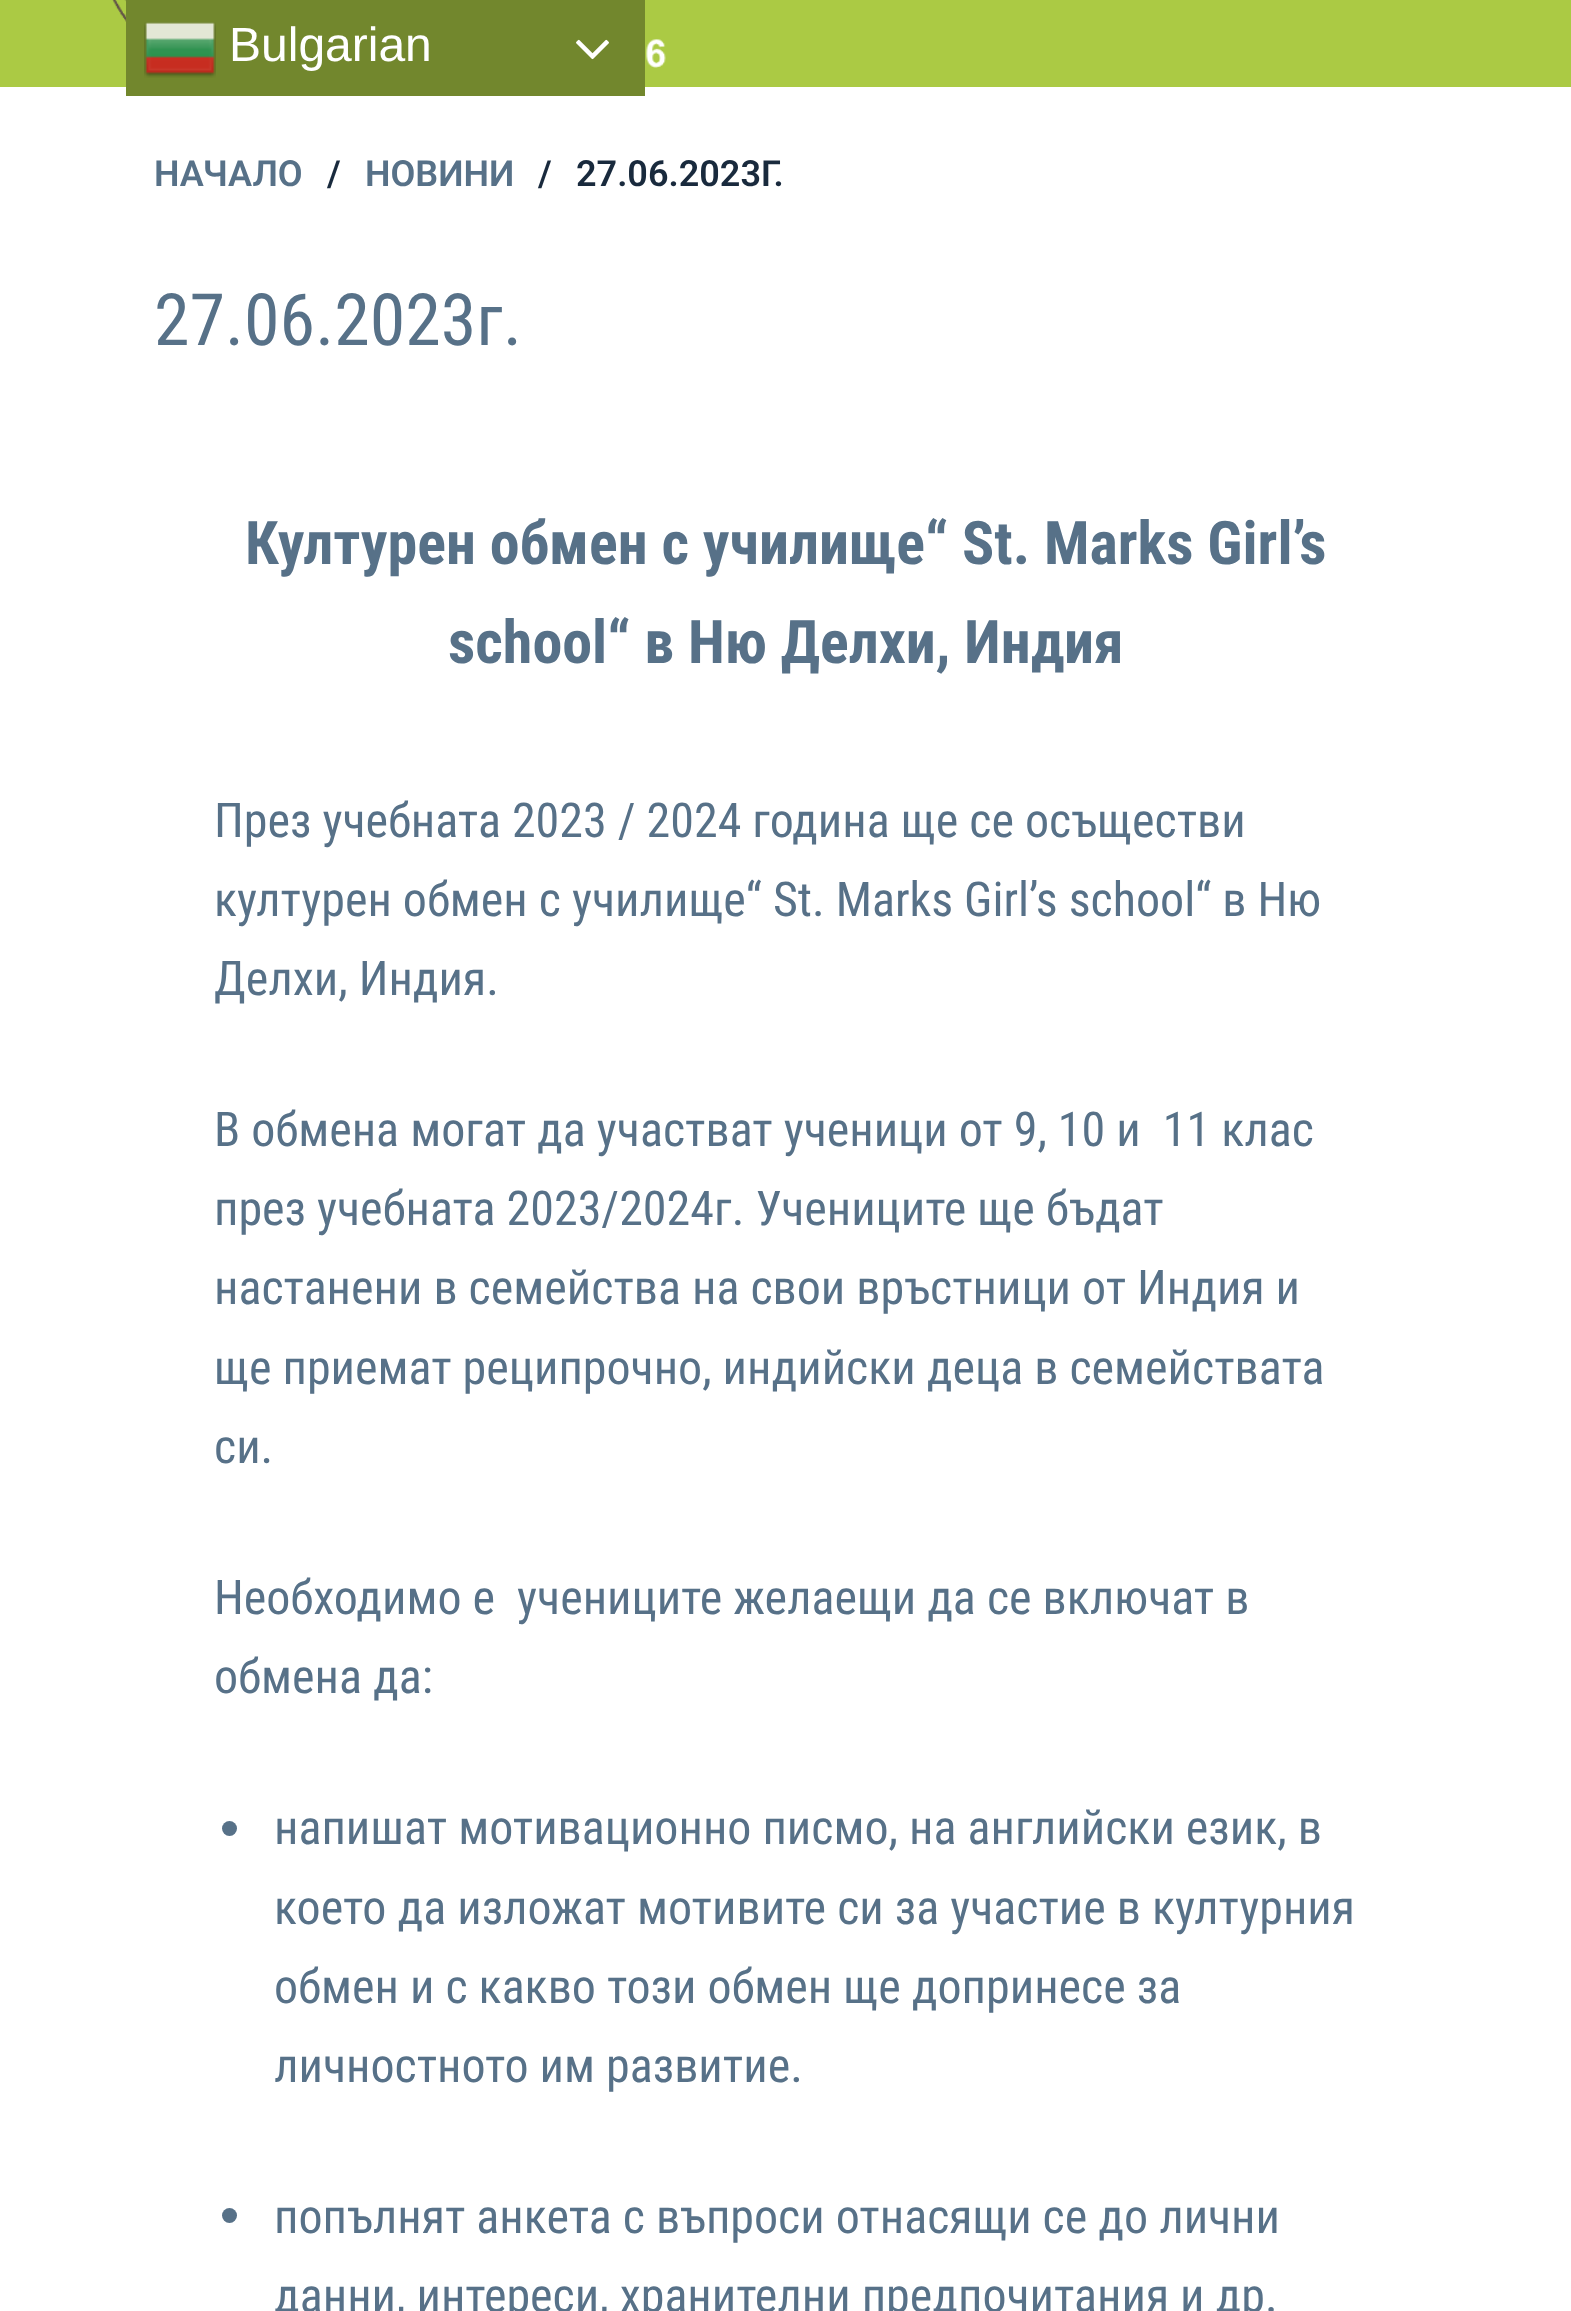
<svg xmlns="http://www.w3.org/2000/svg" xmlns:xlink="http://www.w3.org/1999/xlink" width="1571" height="2311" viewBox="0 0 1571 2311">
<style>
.cls-1{font:48px Liberation Sans;fill:#ffffff}
.cls-2{font:600 36px Roboto;fill:#577188}
.cls-3{font:600 36px Roboto;fill:#192a3d}
.cls-4{font:72px Roboto Condensed;fill:#577188}
.cls-5{font:bold 60px Roboto Condensed;fill:#577188}
.cls-6{font:48px Roboto Condensed;fill:#577188}
</style>
<rect width="100%" height="100%" fill="#ffffff"/>
<rect fill="#abca44" x="0" y="0" width="1571" height="87"/>
<image xlink:href="image2.png" x="112" y="0" width="554" height="68"/>
<rect fill="#72872d" x="126" y="0" width="519" height="96"/>
<image xlink:href="image0.png" x="144" y="22" width="72" height="56"/>
<image xlink:href="image1.png" x="576" y="39" width="33" height="21"/>
<circle fill="#577188" cx="229.5" cy="1828.5" r="7.5"/>
<circle fill="#577188" cx="229.5" cy="2215.5" r="7.5"/>
<text class="cls-1" x="229" y="61">Bulgarian</text>
<text class="cls-2" x="154" y="186">НАЧАЛО</text>
<text class="cls-3" x="327" y="186">/</text>
<text class="cls-2" x="365" y="186">НОВИНИ</text>
<text class="cls-3" x="538" y="186">/</text>
<text class="cls-3" x="576" y="186">27.06.2023Г.</text>
<text class="cls-4" x="154" y="345">27.06.2023г.</text>
<text class="cls-5" x="245" y="564">Културен обмен с училище“ St. Marks Girl’s</text>
<text class="cls-5" x="448" y="663">school“ в Ню Делхи, Индия</text>
<text class="cls-6"><tspan x="214" y="837">През учебната 2023 / 2024 година ще се осъществи</tspan><tspan x="214" y="916">културен обмен с училище“ St. Marks Girl’s school“ в Ню</tspan><tspan x="214" y="995">Делхи, Индия.</tspan></text>
<text class="cls-6" xml:space="preserve"><tspan x="214" y="1146">В обмена могат да участват ученици от 9, 10 и  11 клас</tspan><tspan x="214" y="1225">през учебната 2023/2024г. Учениците ще бъдат</tspan><tspan x="214" y="1304">настанени в семейства на свои връстници от Индия и</tspan><tspan x="214" y="1384">ще приемат реципрочно, индийски деца в семействата</tspan><tspan x="214" y="1463">си.</tspan></text>
<text class="cls-6" xml:space="preserve"><tspan x="214" y="1614">Необходимо е  учениците желаещи да се включат в</tspan><tspan x="214" y="1693">обмена да:</tspan></text>
<text class="cls-6"><tspan x="274" y="1844">напишат мотивационно писмо, на английски език, в</tspan><tspan x="274" y="1924">което да изложат мотивите си за участие в културния</tspan><tspan x="274" y="2003">обмен и с какво този обмен ще допринесе за</tspan><tspan x="274" y="2082">личностното им развитие.</tspan></text>
<text class="cls-6"><tspan x="274" y="2233">попълнят анкета с въпроси отнасящи се до лични</tspan><tspan x="274" y="2312">данни, интереси, хранителни предпочитания и др.</tspan></text>
</svg>
